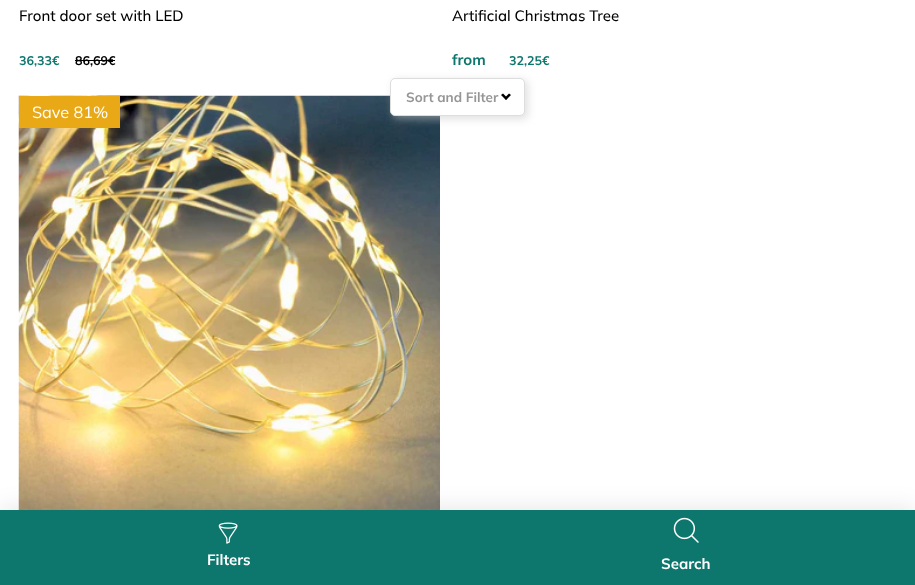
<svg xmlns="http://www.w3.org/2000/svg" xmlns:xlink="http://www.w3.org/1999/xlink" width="915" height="585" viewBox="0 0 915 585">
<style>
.cls-1{font:500 15px Muli;fill:#000000}
.cls-2{font:bold 12.5px Muli;fill:#0d776e}
.cls-3{font:bold 12.5px Muli;fill:#000000}
.cls-4{font:bold 15px Muli;fill:#0d776e}
.cls-5{font:16.25px Muli;fill:#ffffff}
.cls-6{font:bold 13.5px Muli;fill:#969696}
.cls-7{font:bold 15px Muli;fill:#ffffff}
</style>
<rect width="100%" height="100%" fill="#ffffff"/>
<rect fill="#000000" x="75" y="60" width="40" height="1"/>
<image xlink:href="image0.png" x="18" y="95" width="422" height="415"/>
<rect fill="#e9a916" x="19" y="96" width="101" height="32"/>
<rect fill="#c7c7c7" fill-opacity="0.55" filter="blur(4.5px)" x="393" y="80" width="135" height="39" rx="5"/>
<rect fill="#ffffff" stroke="#dddddd" x="390.5" y="78.5" width="134" height="37" rx="4.5"/>
<path fill="#000000" d="M509 93.5L511 95L506 100L504.5 98Z"/>
<path fill="#000000" d="M503 93.5L507.5 98L506 100L501 95Z"/>
<rect fill="#000000" fill-opacity="0.1" filter="blur(12px)" x="0" y="509" width="915" height="75"/>
<rect fill="#0d776e" x="0" y="510" width="915" height="75"/>
<image xlink:href="image1.png" x="218" y="522" width="20" height="22"/>
<image xlink:href="image2.png" x="673" y="517" width="26" height="26"/>
<text class="cls-1" x="19" y="21">Front door set with LED</text>
<text class="cls-2" x="19" y="65">36,33€</text>
<text class="cls-3" x="75" y="65">86,69€</text>
<text class="cls-1" x="452" y="21">Artificial Christmas Tree</text>
<text class="cls-4" x="452" y="65">from</text>
<text class="cls-2" x="509" y="65">32,25€</text>
<text class="cls-5" x="32" y="118">Save 81%</text>
<text class="cls-6" x="406" y="102">Sort and Filter</text>
<text class="cls-7" x="207" y="565">Filters</text>
<text class="cls-7" x="661" y="569">Search</text>
</svg>
